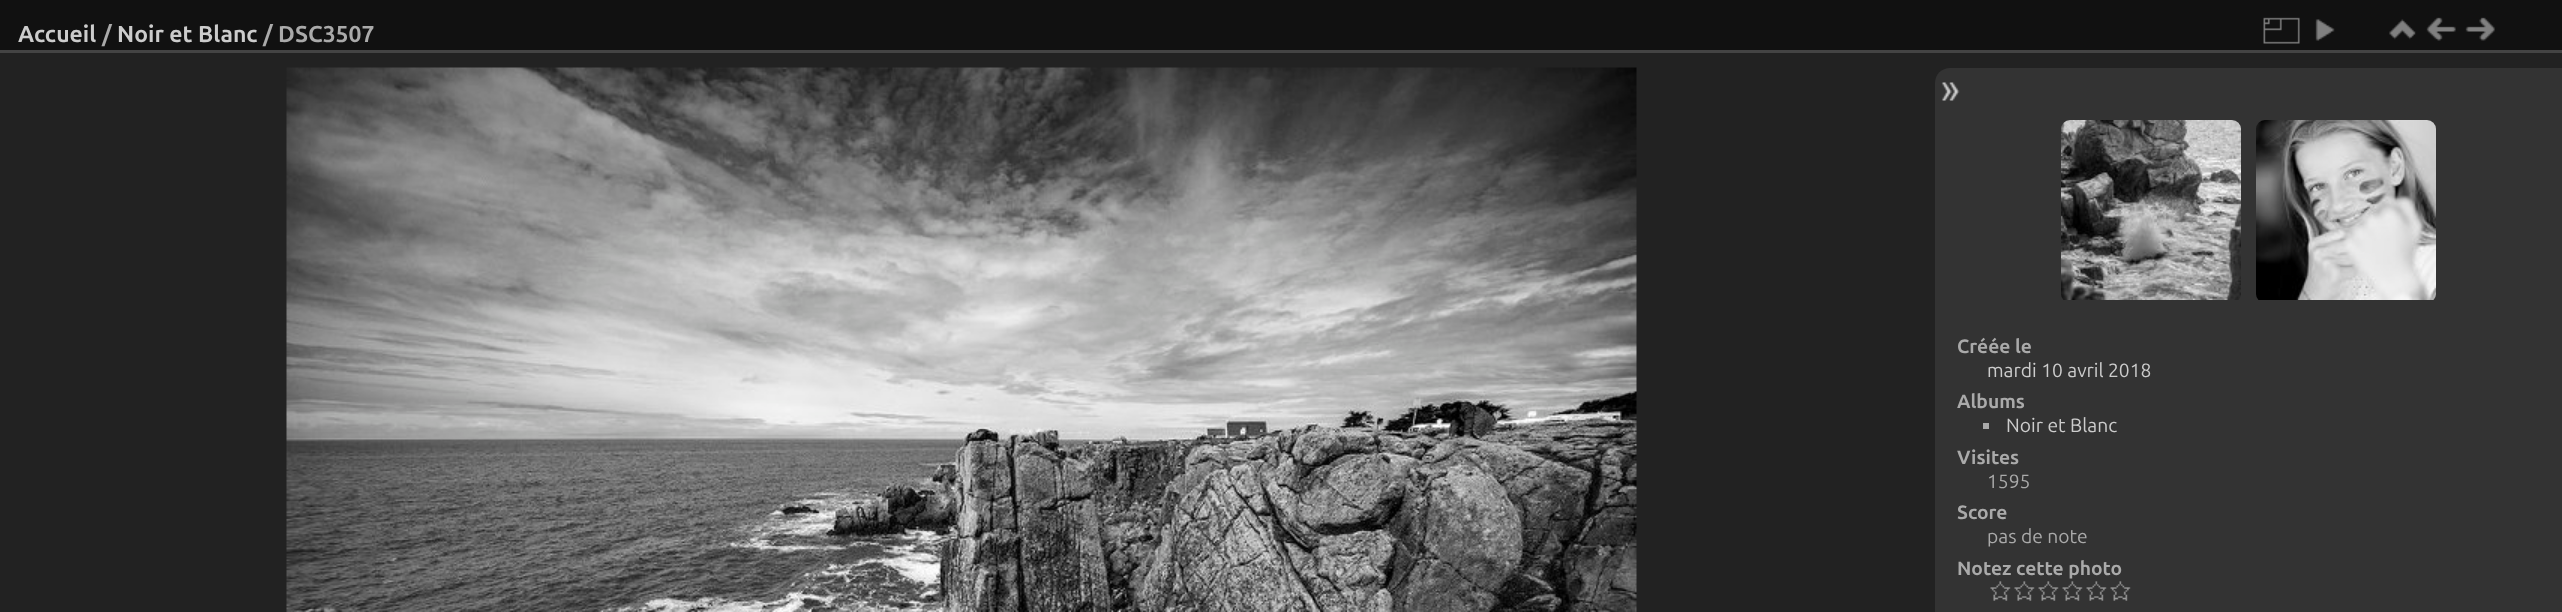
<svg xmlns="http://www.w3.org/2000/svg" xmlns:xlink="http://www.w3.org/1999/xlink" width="2562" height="612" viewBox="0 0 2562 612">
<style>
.cls-1{font:bold 23px Ubuntu;fill:#cccccc}
.cls-2{font:bold 23px Ubuntu;fill:#aaaaaa}
.cls-3{font:bold 19.25px Ubuntu;fill:#aaaaaa}
.cls-4{font:19.25px Ubuntu;fill:#cccccc}
.cls-5{font:19.25px Ubuntu;fill:#aaaaaa}
</style>
<rect width="100%" height="100%" fill="#111111"/>
<rect fill="#222222" x="0" y="53" width="2562" height="559"/>
<rect fill="#444444" x="0" y="50" width="2562" height="3"/>
<image xlink:href="image0.png" x="2263" y="17" width="37" height="27"/>
<image xlink:href="image1.png" x="2315" y="19" width="20" height="22"/>
<image xlink:href="image2.png" x="2389" y="19" width="27" height="21"/>
<image xlink:href="image3.png" x="2426" y="17" width="30" height="24"/>
<image xlink:href="image4.png" x="2465" y="17" width="30" height="24"/>
<image xlink:href="image5.png" x="286" y="67" width="1351" height="545"/>
<path fill="#333333" d="M1950 68H2562V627H1950C1941.5 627 1935 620.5 1935 612V83C1935 74.5 1941.5 68 1950 68Z"/>
<image xlink:href="image6.png" x="1941" y="82" width="19" height="19"/>
<image xlink:href="image7.png" x="2061" y="120" width="180" height="180"/>
<image xlink:href="image8.png" x="2256" y="120" width="180" height="180"/>
<rect fill="#aaaaaa" x="1983" y="423" width="6" height="6"/>
<image xlink:href="image9.png" x="1990" y="581" width="21" height="20"/>
<image xlink:href="image9.png" x="2014" y="581" width="21" height="20"/>
<image xlink:href="image10.png" x="2038" y="581" width="21" height="20"/>
<image xlink:href="image11.png" x="2062" y="581" width="21" height="20"/>
<image xlink:href="image11.png" x="2086" y="581" width="21" height="20"/>
<image xlink:href="image11.png" x="2110" y="581" width="21" height="20"/>
<text class="cls-1" x="18" y="42">Accueil</text>
<text class="cls-2" x="102" y="42">/</text>
<text class="cls-1" x="117" y="42">Noir et Blanc</text>
<text class="cls-2" x="263" y="42">/ DSC3507</text>
<text class="cls-3" x="1957" y="353">Créée le</text>
<text class="cls-4" x="1987" y="377">mardi 10 avril 2018</text>
<text class="cls-3" x="1957" y="408">Albums</text>
<text class="cls-4" x="2006" y="432">Noir et Blanc</text>
<text class="cls-3" x="1957" y="464">Visites</text>
<text class="cls-5" x="1987" y="488">1595</text>
<text class="cls-3" x="1957" y="519">Score</text>
<text class="cls-5" x="1987" y="543">pas de note</text>
<text class="cls-3" x="1957" y="575">Notez cette photo</text>
</svg>
